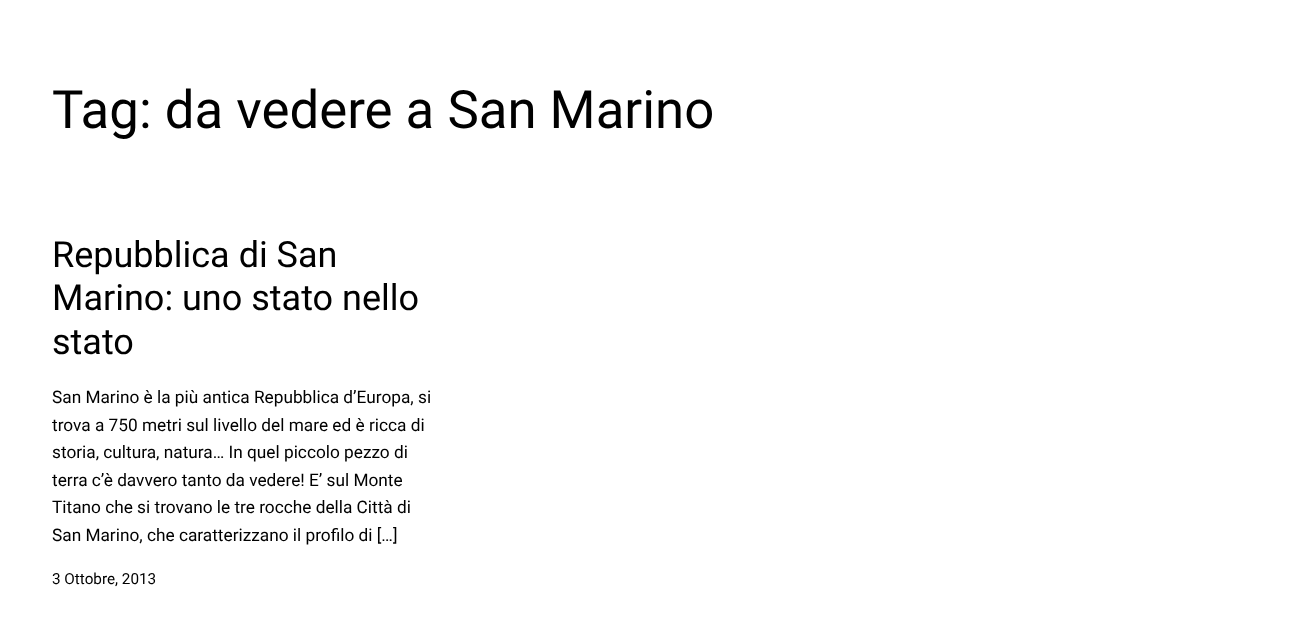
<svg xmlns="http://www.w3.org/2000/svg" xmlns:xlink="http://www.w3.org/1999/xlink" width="1303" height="628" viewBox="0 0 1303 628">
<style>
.cls-1{font:52.75px Roboto;fill:#000000}
.cls-2{font:36px Roboto;fill:#000000}
.cls-3{font:17.25px Roboto;fill:#000000}
.cls-4{font:15.25px Roboto;fill:#000000}
</style>
<rect width="100%" height="100%" fill="#ffffff"/>
<text class="cls-1" x="52" y="128">Tag: da vedere a San Marino</text>
<text class="cls-2"><tspan x="52" y="267">Repubblica di San</tspan><tspan x="52" y="310">Marino: uno stato nello</tspan><tspan x="52" y="354">stato</tspan></text>
<text class="cls-3"><tspan x="52" y="403">San Marino è la più antica Repubblica d’Europa, si</tspan><tspan x="52" y="431">trova a 750 metri sul livello del mare ed è ricca di</tspan><tspan x="52" y="458">storia, cultura, natura… In quel piccolo pezzo di</tspan><tspan x="52" y="486">terra c’è davvero tanto da vedere! E’ sul Monte</tspan><tspan x="52" y="513">Titano che si trovano le tre rocche della Città di</tspan><tspan x="52" y="541">San Marino, che caratterizzano il profilo di […]</tspan></text>
<text class="cls-4" x="52" y="584">3 Ottobre, 2013</text>
</svg>
